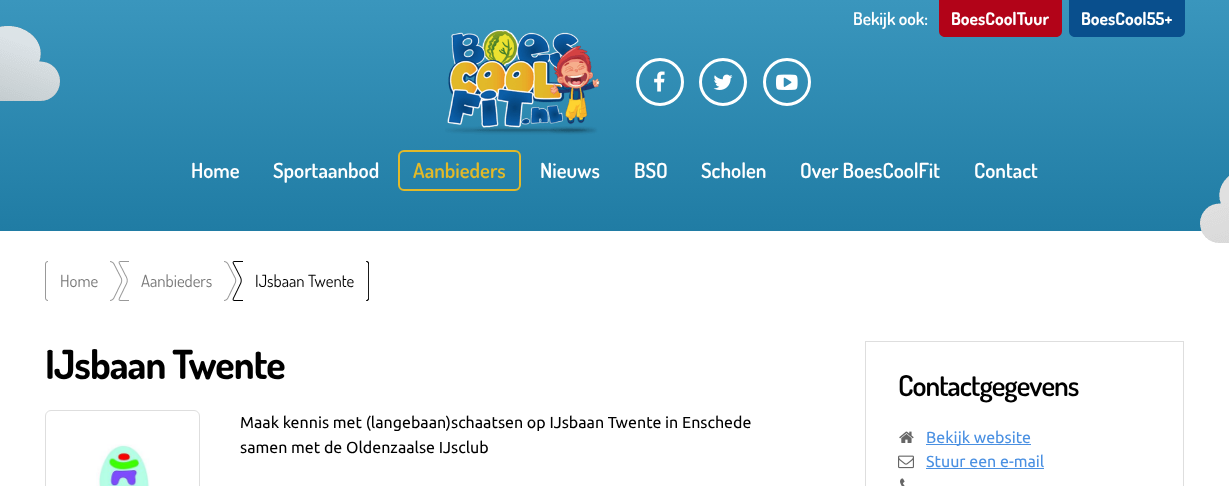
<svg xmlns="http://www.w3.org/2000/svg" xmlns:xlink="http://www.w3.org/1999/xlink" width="1229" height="486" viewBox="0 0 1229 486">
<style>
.cls-1{font:600 17.5px Dosis;fill:#ffffff}
.cls-2{font:bold 17.5px Dosis;fill:#ffffff}
.cls-3{font:600 20.75px Dosis;fill:#ffffff}
.cls-4{font:600 20.75px Dosis;fill:#e2b929}
.cls-5{font:16.75px Dosis;fill:#777777}
.cls-6{font:16.75px Dosis;fill:#000000}
.cls-7{font:bold 40px Dosis;letter-spacing:-1px;fill:#000000}
.cls-8{font:16px Ubuntu;fill:#000000}
.cls-9{font:600 28.75px Dosis;letter-spacing:-1px;fill:#000000}
.cls-10{font:16px Ubuntu;fill:#4a90e2}
</style>
<defs>
<linearGradient id="g1" gradientUnits="userSpaceOnUse" x1="615" y1="0" x2="615" y2="231"><stop offset="0" stop-color="#3a96bd"/><stop offset="1" stop-color="#207ca4"/></linearGradient>
</defs>
<rect width="100%" height="100%" fill="#ffffff"/>
<rect fill="url(#g1)" x="0" y="0" width="1229" height="231"/>
<path fill="#b20318" d="M939 0H1062V31C1062 34.5 1059.5 37 1056 37H945C941.5 37 939 34.5 939 31Z"/>
<path fill="#094f8d" d="M1069 0H1185V31C1185 34.5 1182.5 37 1179 37H1075C1071.5 37 1069 34.5 1069 31Z"/>
<image xlink:href="image0.png" x="0" y="26" width="60" height="75"/>
<image xlink:href="image1.png" x="445" y="30" width="155" height="105"/>
<circle fill="none" stroke="#ffffff" stroke-width="3" cx="660" cy="82" r="22.5"/>
<image xlink:href="image2.png" x="654" y="71" width="11" height="21"/>
<circle fill="none" stroke="#ffffff" stroke-width="3" cx="723" cy="82" r="22.5"/>
<image xlink:href="image3.png" x="713" y="74" width="20" height="16"/>
<circle fill="none" stroke="#ffffff" stroke-width="3" cx="787" cy="82" r="22.5"/>
<image xlink:href="image4.png" x="776" y="74" width="22" height="16"/>
<rect fill="none" stroke="#e2b929" stroke-width="2" x="399" y="151" width="121" height="39" rx="5"/>
<image xlink:href="image5.png" x="1200" y="176" width="29" height="67"/>
<image xlink:href="image6.png" x="45" y="261" width="3" height="40"/>
<image xlink:href="image7.png" x="110" y="261" width="19" height="40"/>
<image xlink:href="image8.png" x="224" y="261" width="19" height="40"/>
<image xlink:href="image9.png" x="366" y="261" width="3" height="40"/>
<rect fill="none" stroke="#dedede" x="45.5" y="410.5" width="154" height="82" rx="5.5"/>
<image xlink:href="image10.png" x="96" y="444" width="54" height="42"/>
<rect fill="none" stroke="#dedede" x="865.5" y="341.5" width="318" height="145"/>
<image xlink:href="image11.png" x="899" y="431" width="15" height="12"/>
<rect fill="#4a90e2" x="926" y="444" width="105" height="1"/>
<image xlink:href="image12.png" x="898" y="455" width="16" height="14"/>
<rect fill="#4a90e2" x="926" y="468" width="118" height="1"/>
<image xlink:href="image13.png" x="900" y="478" width="5" height="8"/>
<text class="cls-1" x="853" y="25">Bekijk ook:</text>
<text class="cls-2" x="951" y="25">BoesCoolTuur</text>
<text class="cls-2" x="1081" y="25">BoesCool55+</text>
<text class="cls-3" x="191" y="178">Home</text>
<text class="cls-3" x="273" y="178">Sportaanbod</text>
<text class="cls-4" x="413" y="178">Aanbieders</text>
<text class="cls-3" x="540" y="178">Nieuws</text>
<text class="cls-3" x="634" y="178">BSO</text>
<text class="cls-3" x="701" y="178">Scholen</text>
<text class="cls-3" x="800" y="178">Over BoesCoolFit</text>
<text class="cls-3" x="974" y="178">Contact</text>
<text class="cls-5" x="60" y="287">Home</text>
<text class="cls-5" x="141" y="287">Aanbieders</text>
<text class="cls-6" x="255" y="287">IJsbaan Twente</text>
<text class="cls-7" x="45" y="379">IJsbaan Twente</text>
<text class="cls-8"><tspan x="240" y="428">Maak kennis met (langebaan)schaatsen op IJsbaan Twente in Enschede</tspan><tspan x="240" y="453">samen met de Oldenzaalse IJsclub</tspan></text>
<text class="cls-9" x="898" y="396">Contactgegevens</text>
<text class="cls-10"><tspan x="926" y="443">Bekijk website</tspan><tspan x="926" y="467">Stuur een e-mail</tspan></text>
</svg>
